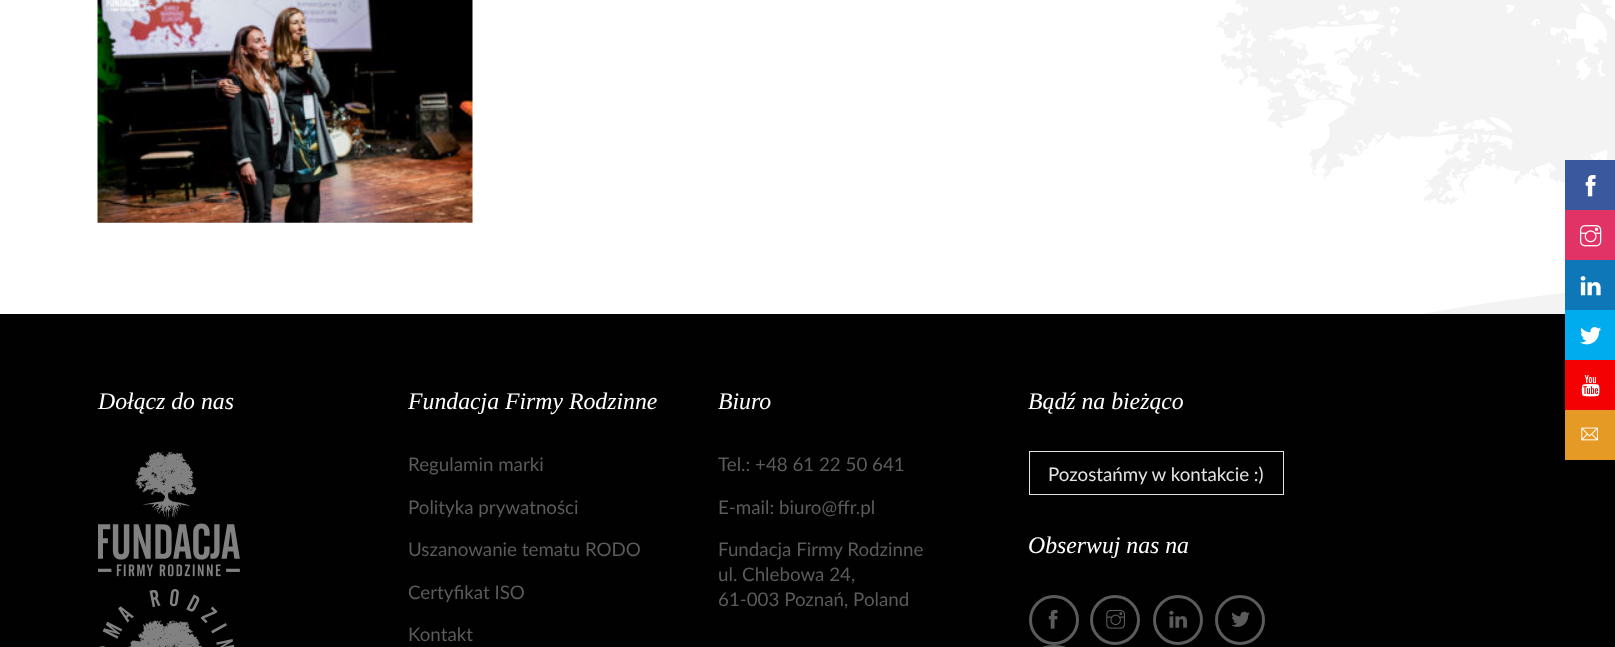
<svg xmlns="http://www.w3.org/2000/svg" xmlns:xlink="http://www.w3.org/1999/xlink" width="1615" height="647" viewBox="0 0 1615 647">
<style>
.cls-1{font:italic 23.75px Liberation Serif;fill:#ffffff}
.cls-2{font:18.75px Lato;fill:#5b5b5b}
.cls-3{font:18.75px Lato;fill:#e3e3e3}
</style>
<rect width="100%" height="100%" fill="#ffffff"/>
<image xlink:href="image0.png" x="97" y="0" width="376" height="223"/>
<image xlink:href="image1.png" x="1216" y="0" width="399" height="314"/>
<rect fill="#3a589e" x="1565" y="160" width="50" height="50"/>
<image xlink:href="image2.png" x="1585" y="175" width="11" height="22"/>
<rect fill="#e23367" x="1565" y="210" width="50" height="50"/>
<image xlink:href="image3.png" x="1580" y="225" width="22" height="22"/>
<rect fill="#0d77b7" x="1565" y="260" width="50" height="50"/>
<image xlink:href="image4.png" x="1580" y="276" width="21" height="20"/>
<rect fill="#010101" x="0" y="314" width="1615" height="333"/>
<rect fill="#00aced" x="1565" y="310" width="50" height="50"/>
<image xlink:href="image5.png" x="1580" y="327" width="22" height="18"/>
<rect fill="#f40104" x="1565" y="360" width="50" height="50"/>
<image xlink:href="image6.png" x="1581" y="375" width="19" height="22"/>
<rect fill="#e49a25" x="1565" y="410" width="50" height="50"/>
<image xlink:href="image7.png" x="1581" y="427" width="17" height="14"/>
<image xlink:href="image8.png" x="98" y="452" width="142" height="125"/>
<image xlink:href="image9.png" x="99" y="589" width="136" height="58"/>
<rect fill="none" stroke="#e3e3e3" x="1029.5" y="451.5" width="254" height="43"/>
<circle fill="none" stroke="#5b5b5b" stroke-width="3" cx="1054" cy="620" r="23.5"/>
<image xlink:href="image10.png" x="1048" y="609" width="10" height="20"/>
<circle fill="none" stroke="#5b5b5b" stroke-width="3" cx="1115" cy="620" r="23.5"/>
<image xlink:href="image11.png" x="1106" y="609" width="19" height="20"/>
<circle fill="none" stroke="#5b5b5b" stroke-width="3" cx="1178" cy="620" r="23.5"/>
<image xlink:href="image12.png" x="1169" y="610" width="18" height="18"/>
<circle fill="none" stroke="#5b5b5b" stroke-width="3" cx="1240" cy="620" r="23.5"/>
<image xlink:href="image13.png" x="1231" y="611" width="19" height="16"/>
<rect fill="none" stroke="#5b5b5b" stroke-width="3" x="1030.5" y="646.5" width="47" height="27" rx="23.5"/>
<text class="cls-1" x="98" y="409">Dołącz do nas</text>
<text class="cls-1" x="408" y="409">Fundacja Firmy Rodzinne</text>
<text class="cls-2" x="408" y="471">Regulamin marki</text>
<text class="cls-2" x="408" y="514">Polityka prywatności</text>
<text class="cls-2" x="408" y="556">Uszanowanie tematu RODO</text>
<text class="cls-2" x="408" y="599">Certyfikat ISO</text>
<text class="cls-2" x="408" y="641">Kontakt</text>
<text class="cls-1" x="718" y="409">Biuro</text>
<text class="cls-2" x="718" y="471">Tel.: +48 61 22 50 641</text>
<text class="cls-2" x="718" y="514">E-mail: biuro@ffr.pl</text>
<text class="cls-2"><tspan x="718" y="556">Fundacja Firmy Rodzinne</tspan><tspan x="718" y="581">ul. Chlebowa 24,</tspan><tspan x="718" y="606">61-003 Poznań, Poland</tspan></text>
<text class="cls-1" x="1028" y="409">Bądź na bieżąco</text>
<text class="cls-3" x="1048" y="481">Pozostańmy w kontakcie :)</text>
<text class="cls-1" x="1028" y="553">Obserwuj nas na</text>
</svg>
